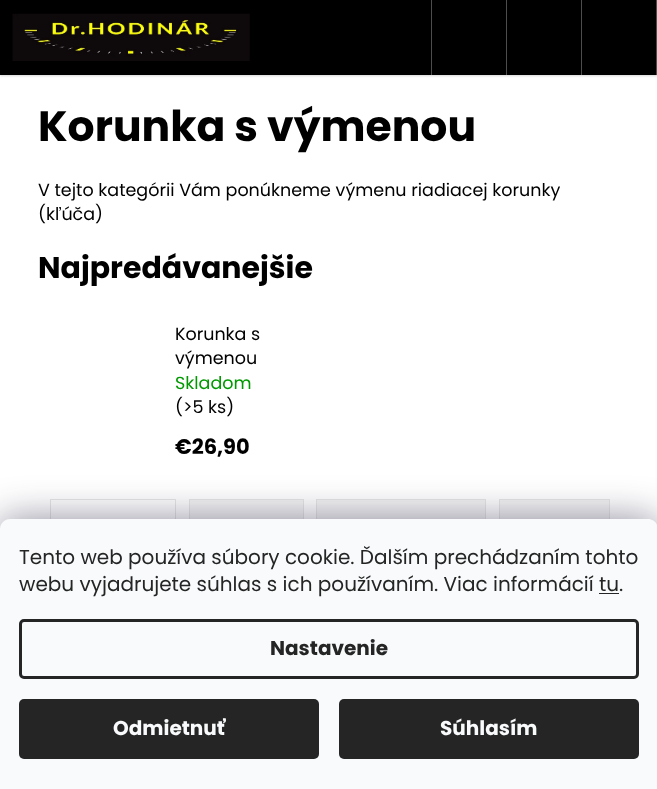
<svg xmlns="http://www.w3.org/2000/svg" xmlns:xlink="http://www.w3.org/1999/xlink" width="657" height="789" viewBox="0 0 657 789">
<style>
.cls-1{font:bold 42.5px Poppins;fill:#000000}
.cls-2{font:17.5px Poppins;fill:#000000}
.cls-3{font:bold 30px Poppins;fill:#000000}
.cls-4{font:17.5px Poppins;fill:#009901}
.cls-5{font:bold 21px Poppins;fill:#000000}
.cls-6{font:20px Poppins;fill:#252525}
.cls-7{font:bold 20px Poppins;fill:#252525}
.cls-8{font:bold 20px Poppins;fill:#f8fafb}
</style>
<rect width="100%" height="100%" fill="#ffffff"/>
<rect fill="#000000" fill-opacity="0.16" filter="blur(1px)" x="0" y="1" width="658" height="75"/>
<rect fill="#000000" x="0" y="0" width="656" height="75"/>
<image xlink:href="image0.png" x="12" y="13" width="238" height="48"/>
<rect fill="#4d4d4d" x="656" y="0" width="1" height="75"/>
<rect fill="#4d4d4d" x="431" y="0" width="1" height="75"/>
<rect fill="#4d4d4d" x="506" y="0" width="1" height="75"/>
<rect fill="#4d4d4d" x="581" y="0" width="1" height="75"/>
<rect fill="#e7e7e7" x="50" y="499" width="126" height="1"/>
<rect fill="#e7e7e7" x="175" y="499" width="1" height="20"/>
<rect fill="#e7e7e7" x="50" y="499" width="1" height="20"/>
<rect fill="#f5f5f5" x="190" y="500" width="113" height="19"/>
<rect fill="none" stroke="#e7e7e7" x="189.5" y="499.5" width="114" height="39"/>
<rect fill="#f5f5f5" x="317" y="500" width="168" height="19"/>
<rect fill="none" stroke="#e7e7e7" x="316.5" y="499.5" width="169" height="39"/>
<rect fill="#f5f5f5" x="500" y="500" width="109" height="19"/>
<rect fill="none" stroke="#e7e7e7" x="499.5" y="499.5" width="110" height="39"/>
<rect fill="#1b1939" fill-opacity="0.5" filter="blur(19px)" x="0" y="519" width="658" height="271" rx="10"/>
<path fill="#f8fafb" d="M10 519H648C653.5 519 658 523.5 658 529V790H0V529C0 523.5 4.5 519 10 519Z"/>
<rect fill="#252525" x="599" y="593" width="20" height="1"/>
<rect fill="none" stroke="#252525" stroke-width="3" x="20.5" y="620.5" width="617" height="57" rx="3.5"/>
<rect fill="#252525" x="19" y="699" width="300" height="60" rx="5"/>
<rect fill="#252525" x="339" y="699" width="300" height="60" rx="5"/>
<text class="cls-1" x="38" y="141">Korunka s výmenou</text>
<text class="cls-2"><tspan x="38" y="196">V tejto kategórii Vám ponúkneme výmenu riadiacej korunky</tspan><tspan x="38" y="220">(kľúča)</tspan></text>
<text class="cls-3" x="38" y="278">Najpredávanejšie</text>
<text class="cls-2"><tspan x="175" y="340">Korunka s</tspan><tspan x="175" y="364">výmenou</tspan></text>
<text class="cls-4" x="175" y="389">Skladom</text>
<text class="cls-2" x="175" y="413">(&gt;5 ks)</text>
<text class="cls-5" x="175" y="454">€26,90</text>
<text class="cls-6"><tspan x="19" y="564">Tento web používa súbory cookie. Ďalším prechádzaním tohto</tspan><tspan x="19" y="591">webu vyjadrujete súhlas s ich používaním. Viac informácií tu.</tspan></text>
<text class="cls-7" x="270" y="655">Nastavenie</text>
<text class="cls-8" x="113" y="735">Odmietnuť</text>
<text class="cls-8" x="440" y="735">Súhlasím</text>
</svg>
